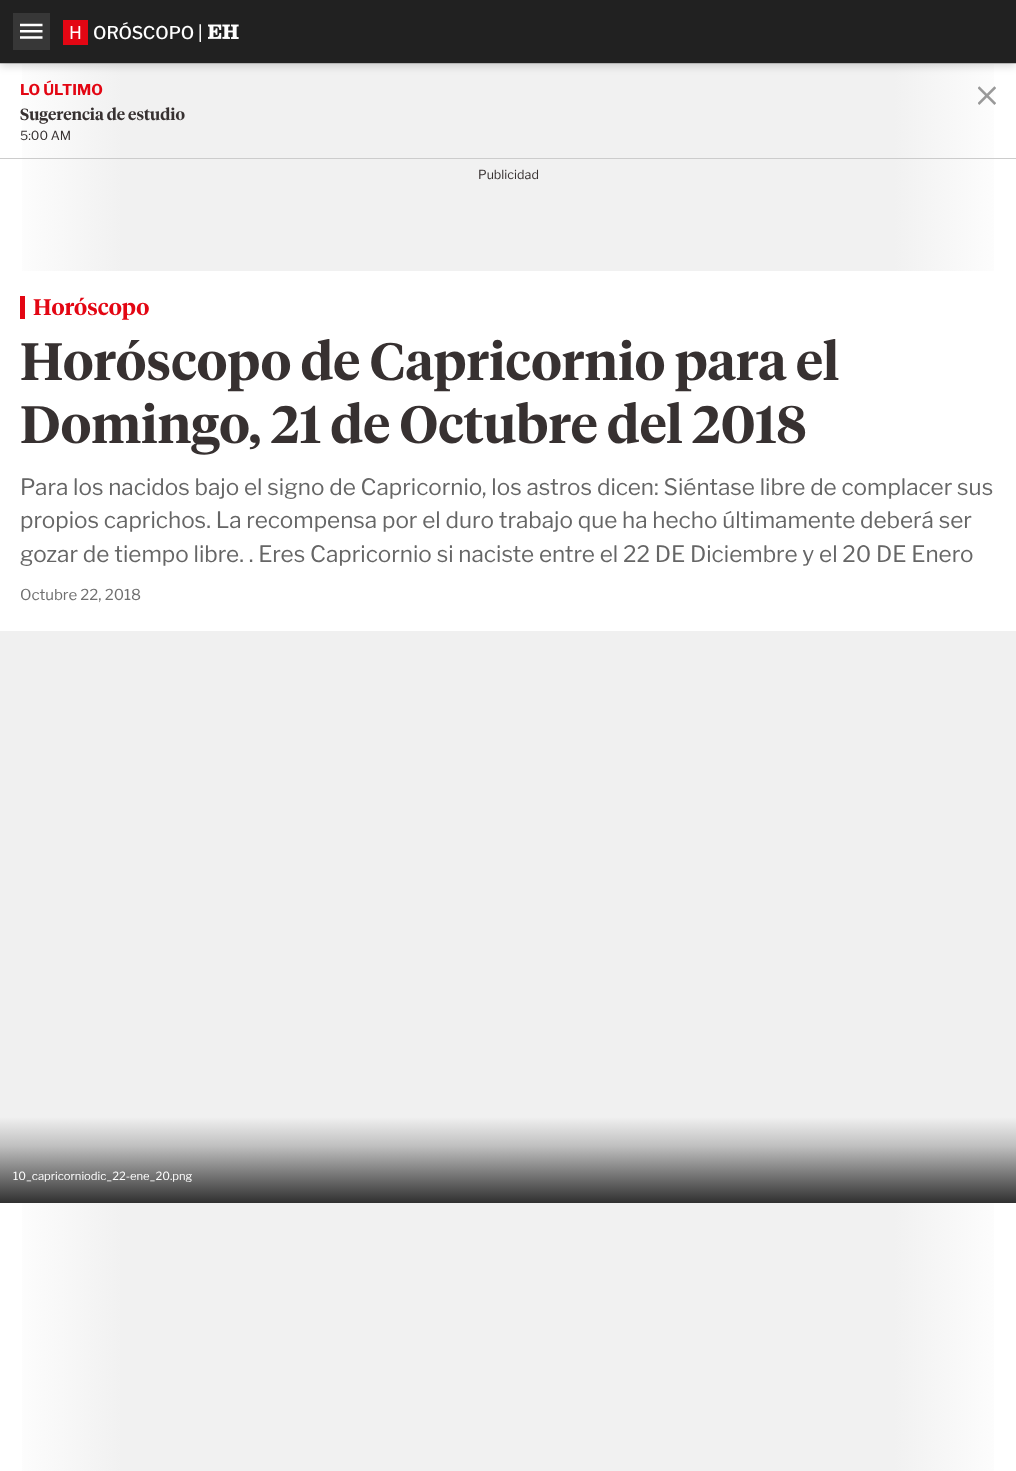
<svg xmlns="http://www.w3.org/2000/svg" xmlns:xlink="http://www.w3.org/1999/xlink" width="1016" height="1471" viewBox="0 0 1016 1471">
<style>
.cls-1{font:17.5px Libre Franklin;fill:#ffffff}
.cls-2{font:500 17.5px Libre Franklin;fill:#ffffff}
.cls-3{font:bold 15px Libre Franklin;fill:#e30613}
.cls-4{font:600 16.25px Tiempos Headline;fill:#373131}
.cls-5{font:12.5px Libre Franklin;fill:#373131}
.cls-6{font:600 22.5px Tiempos Headline;fill:#e30613}
.cls-7{font:600 52.5px Tiempos Headline;fill:#373131}
.cls-8{font:22.5px Libre Franklin;fill:#666666}
.cls-9{font:15px Libre Franklin;fill:#707070}
.cls-10{font:11.25px Libre Franklin;fill:#ffffff}
</style>
<defs>
<linearGradient id="g1" gradientUnits="userSpaceOnUse" x1="0" y1="111" x2="1016" y2="111"><stop offset="0" stop-color="#ffffff"/><stop offset="0.12" stop-color="#f1f1f1"/><stop offset="0.88" stop-color="#f1f1f1"/><stop offset="1" stop-color="#ffffff"/></linearGradient>
<clipPath id="clip1"><path d="M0 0H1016V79H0ZM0 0H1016V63H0Z" clip-rule="evenodd"/></clipPath>
<linearGradient id="g2" gradientUnits="userSpaceOnUse" x1="0" y1="215" x2="1016" y2="215"><stop offset="0" stop-color="#ffffff"/><stop offset="0.12" stop-color="#f1f1f1"/><stop offset="0.88" stop-color="#f1f1f1"/><stop offset="1" stop-color="#ffffff"/></linearGradient>
<linearGradient id="g3" gradientUnits="userSpaceOnUse" x1="508" y1="631" x2="508" y2="1203"><stop offset="0.85" stop-color="#f0f0f0"/><stop offset="0.9" stop-color="#c0c0c0"/><stop offset="0.95" stop-color="#787878"/><stop offset="1" stop-color="#303030"/></linearGradient>
<linearGradient id="g4" gradientUnits="userSpaceOnUse" x1="0" y1="1359" x2="1016" y2="1359"><stop offset="0" stop-color="#ffffff"/><stop offset="0.12" stop-color="#f1f1f1"/><stop offset="0.88" stop-color="#f1f1f1"/><stop offset="1" stop-color="#ffffff"/></linearGradient>
</defs>
<rect width="100%" height="100%" fill="#ffffff"/>
<rect fill="#212121" x="0" y="0" width="1016" height="63"/>
<rect fill="url(#g1)" x="22" y="64" width="972" height="94"/>
<rect fill="#cccccc" x="0" y="63" width="1016" height="1"/>
<g clip-path="url(#clip1)">
<rect fill="#000000" fill-opacity="0.16" filter="blur(4px)" x="0" y="4" width="1016" height="62"/>
</g>
<rect fill="#373737" x="13" y="13" width="37" height="37"/>
<image xlink:href="image0.png" x="20" y="23" width="23" height="16"/>
<rect fill="#e30613" x="63" y="20" width="25" height="25"/>
<image xlink:href="image1.png" x="208" y="24" width="31" height="15"/>
<rect fill="#cccccc" x="0" y="158" width="1016" height="1"/>
<image xlink:href="image2.png" x="978" y="86" width="18" height="19"/>
<rect fill="url(#g2)" x="22" y="159" width="972" height="112"/>
<rect fill="#e30613" x="20" y="296" width="5" height="23"/>
<rect fill="url(#g3)" x="0" y="631" width="1016" height="572"/>
<rect fill="url(#g4)" x="22" y="1203" width="972" height="268"/>
<text class="cls-1" x="69" y="39">H</text>
<text class="cls-2" x="93" y="39">ORÓSCOPO |</text>
<text class="cls-3" x="20" y="95">LO ÚLTIMO</text>
<text class="cls-4" x="20" y="120">Sugerencia de estudio</text>
<text class="cls-5" x="20" y="140">5:00 AM</text>
<text class="cls-5" x="478" y="179">Publicidad</text>
<text class="cls-6" x="33" y="315">Horóscopo</text>
<text class="cls-7"><tspan x="20" y="380">Horóscopo de Capricornio para el</tspan><tspan x="20" y="443">Domingo, 21 de Octubre del 2018</tspan></text>
<text class="cls-8"><tspan x="20" y="495">Para los nacidos bajo el signo de Capricornio, los astros dicen: Siéntase libre de complacer sus</tspan><tspan x="20" y="528">propios caprichos. La recompensa por el duro trabajo que ha hecho últimamente deberá ser</tspan><tspan x="20" y="562">gozar de tiempo libre. . Eres Capricornio si naciste entre el 22 DE Diciembre y el 20 DE Enero</tspan></text>
<text class="cls-9" x="20" y="600">Octubre 22, 2018</text>
<text class="cls-10" x="13" y="1180">10_capricorniodic_22-ene_20.png</text>
</svg>
